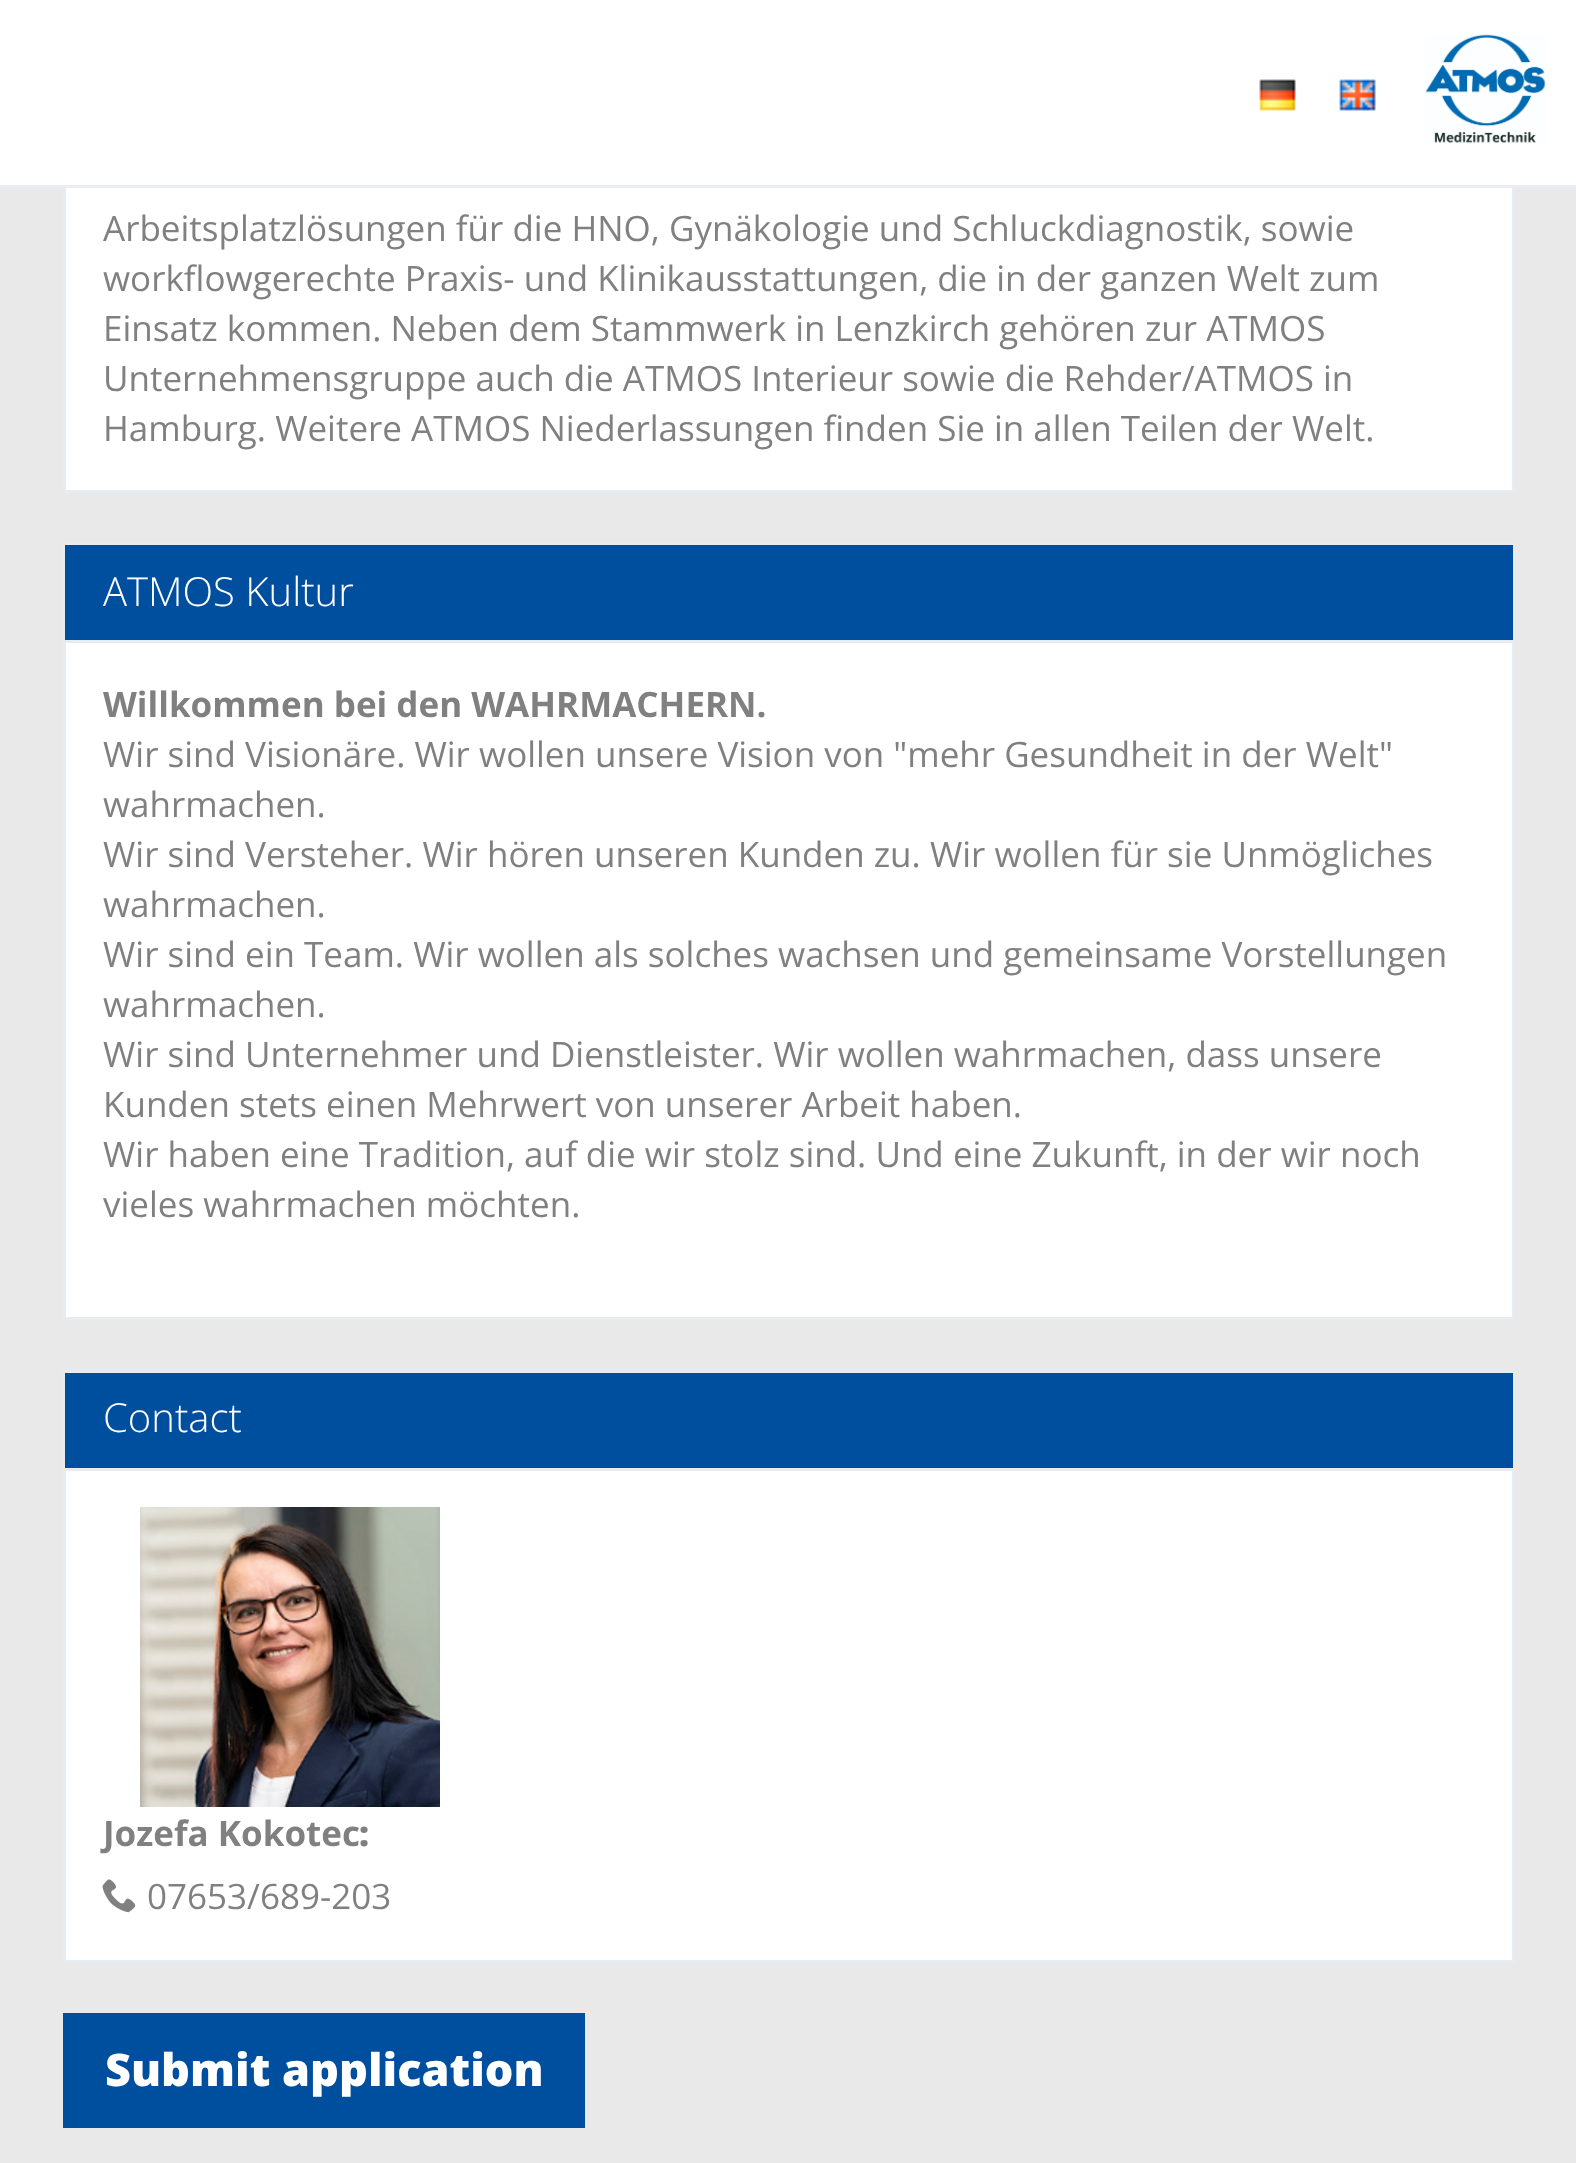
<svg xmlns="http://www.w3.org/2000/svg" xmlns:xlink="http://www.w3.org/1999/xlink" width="1576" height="2163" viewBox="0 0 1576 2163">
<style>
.cls-1{font:35px Open Sans;fill:#808080}
.cls-2{font:300 40px Open Sans;fill:#ffffff}
.cls-3{font:bold 35px Open Sans;fill:#808080}
.cls-4{font:800 35px Open Sans;fill:#808080}
.cls-5{font:800 45px Open Sans;fill:#ffffff}
</style>
<rect width="100%" height="100%" fill="#e9e9e9"/>
<rect fill="#ffffff" x="66" y="188" width="1446" height="302"/>
<rect fill="none" stroke="#e7ecf1" stroke-width="3" x="64.5" y="-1.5" width="1449" height="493"/>
<rect fill="#ffffff" x="0" y="0" width="1576" height="185"/>
<rect fill="#e9ecf3" x="0" y="185" width="1576" height="3"/>
<image xlink:href="image0.png" x="1259" y="79" width="37" height="32"/>
<image xlink:href="image1.png" x="1339" y="79" width="37" height="32"/>
<image xlink:href="image2.png" x="1425" y="34" width="121" height="109"/>
<rect fill="#ffffff" x="66" y="643" width="1446" height="674"/>
<rect fill="none" stroke="#e7ecf1" stroke-width="3" x="64.5" y="544.5" width="1449" height="774"/>
<rect fill="#004f9f" x="65" y="545" width="1448" height="95"/>
<rect fill="#e7ecf1" x="65" y="640" width="1448" height="3"/>
<rect fill="#ffffff" x="66" y="1471" width="1446" height="489"/>
<rect fill="none" stroke="#e7ecf1" stroke-width="3" x="64.5" y="1371.5" width="1449" height="590"/>
<rect fill="#004f9f" x="65" y="1373" width="1448" height="95"/>
<rect fill="#e7ecf1" x="65" y="1468" width="1448" height="3"/>
<image xlink:href="image3.png" x="140" y="1507" width="300" height="300"/>
<image xlink:href="image4.png" x="102" y="1879" width="34" height="34"/>
<rect fill="#004f9f" x="63" y="2013" width="522" height="115"/>
<text class="cls-1"><tspan x="103" y="241">Arbeitsplatzlösungen für die HNO, Gynäkologie und Schluckdiagnostik, sowie</tspan><tspan x="103" y="291">workflowgerechte Praxis- und Klinikausstattungen, die in der ganzen Welt zum</tspan><tspan x="103" y="341">Einsatz kommen. Neben dem Stammwerk in Lenzkirch gehören zur ATMOS</tspan><tspan x="103" y="391">Unternehmensgruppe auch die ATMOS Interieur sowie die Rehder/ATMOS in</tspan><tspan x="103" y="441">Hamburg. Weitere ATMOS Niederlassungen finden Sie in allen Teilen der Welt.</tspan></text>
<text class="cls-2" x="103" y="606">ATMOS Kultur</text>
<text class="cls-3" x="103" y="717">Willkommen bei den WAHRMACHERN.</text>
<text class="cls-1"><tspan x="103" y="767">Wir sind Visionäre. Wir wollen unsere Vision von "mehr Gesundheit in der Welt"</tspan><tspan x="103" y="817">wahrmachen.</tspan><tspan x="103" y="867">Wir sind Versteher. Wir hören unseren Kunden zu. Wir wollen für sie Unmögliches</tspan><tspan x="103" y="917">wahrmachen.</tspan><tspan x="103" y="967">Wir sind ein Team. Wir wollen als solches wachsen und gemeinsame Vorstellungen</tspan><tspan x="103" y="1017">wahrmachen.</tspan><tspan x="103" y="1067">Wir sind Unternehmer und Dienstleister. Wir wollen wahrmachen, dass unsere</tspan><tspan x="103" y="1117">Kunden stets einen Mehrwert von unserer Arbeit haben.</tspan><tspan x="103" y="1167">Wir haben eine Tradition, auf die wir stolz sind. Und eine Zukunft, in der wir noch</tspan><tspan x="103" y="1217">vieles wahrmachen möchten.</tspan></text>
<text class="cls-2" x="103" y="1432">Contact</text>
<text class="cls-3" x="103" y="1846">Jozefa Kokotec</text>
<text class="cls-4" x="359" y="1846">:</text>
<text class="cls-1" x="147" y="1909">07653/689-203</text>
<text class="cls-5" x="105" y="2086">Submit application</text>
</svg>
